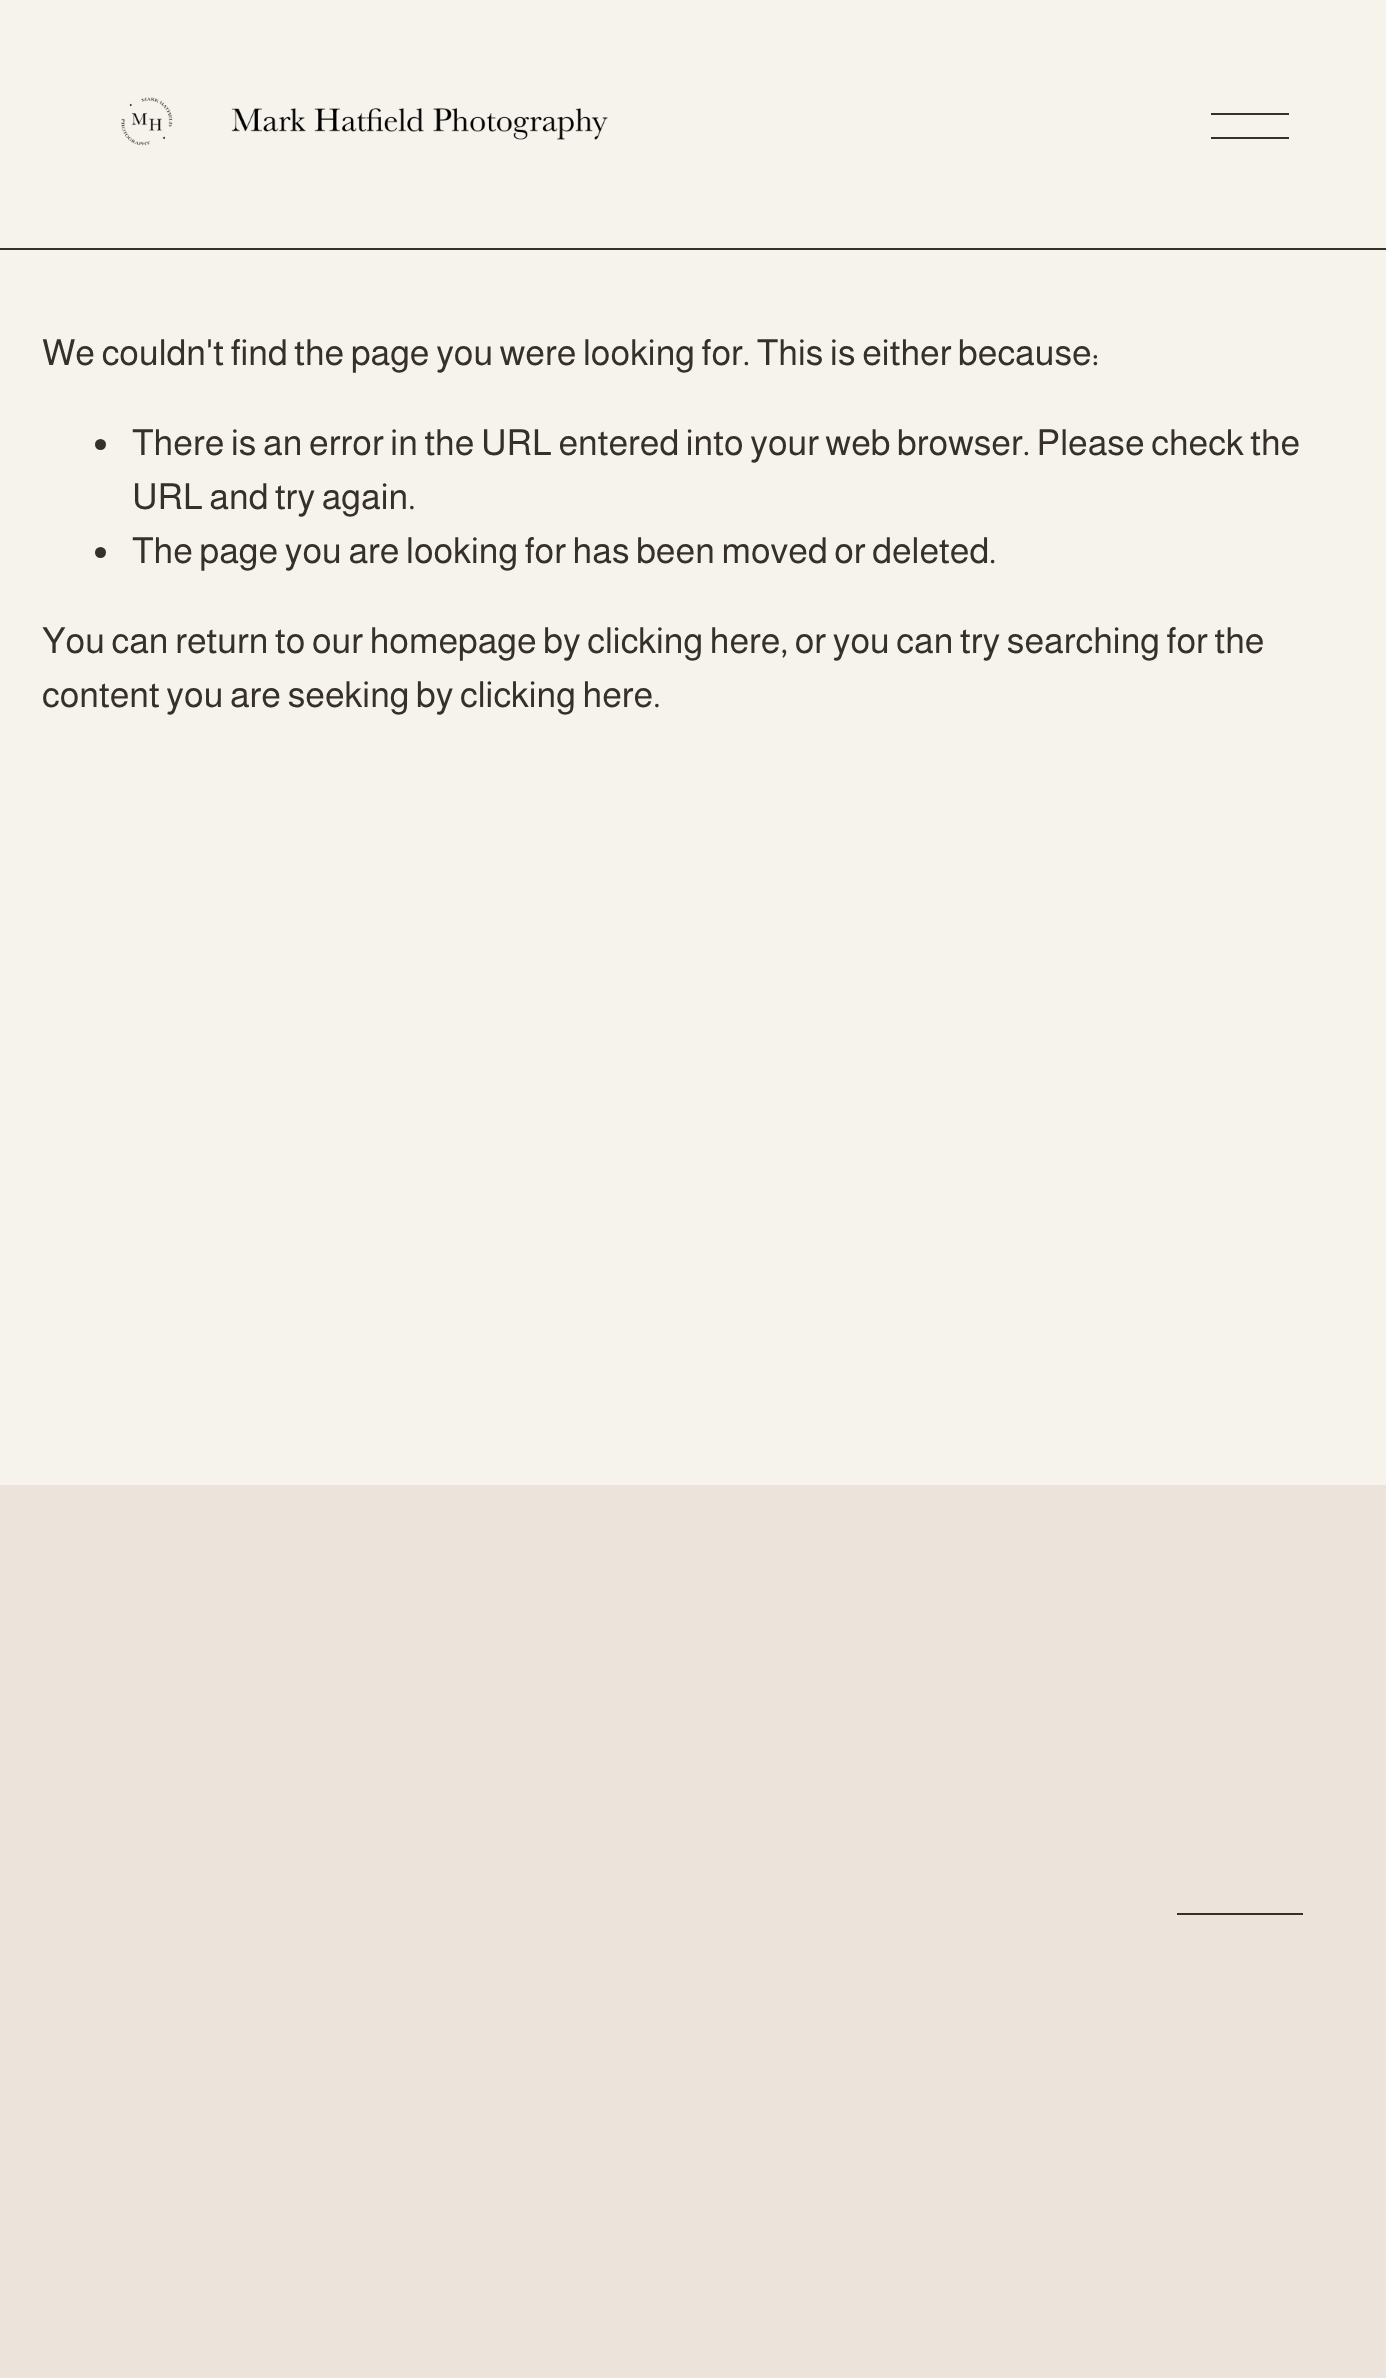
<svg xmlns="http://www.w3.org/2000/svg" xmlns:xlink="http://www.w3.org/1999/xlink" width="1386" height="2378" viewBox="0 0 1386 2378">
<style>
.cls-1{font:36px Almarai;fill:#36302a}
</style>
<rect width="100%" height="100%" fill="#f6f3ec"/>
<image xlink:href="image0.png" x="121" y="97" width="487" height="49"/>
<rect fill="#36302a" x="1211" y="113" width="78" height="2"/>
<rect fill="#36302a" x="1211" y="137" width="78" height="2"/>
<rect fill="#36302a" x="0" y="248" width="1386" height="2"/>
<circle fill="#36302a" cx="100.5" cy="444.5" r="5.5"/>
<circle fill="#36302a" cx="100.5" cy="552.5" r="5.5"/>
<rect fill="#ece4da" x="0" y="1485" width="1386" height="893"/>
<rect fill="#36302a" x="1177" y="1913" width="126" height="2"/>
<text class="cls-1" x="42" y="365">We couldn't find the page you were looking for. This is either because:</text>
<text class="cls-1"><tspan x="132" y="455">There is an error in the URL entered into your web browser. Please check the</tspan><tspan x="132" y="509">URL and try again.</tspan><tspan x="132" y="563">The page you are looking for has been moved or deleted.</tspan></text>
<text class="cls-1"><tspan x="42" y="653">You can return to our homepage by clicking here, or you can try searching for the</tspan><tspan x="42" y="707">content you are seeking by clicking here.</tspan></text>
</svg>
